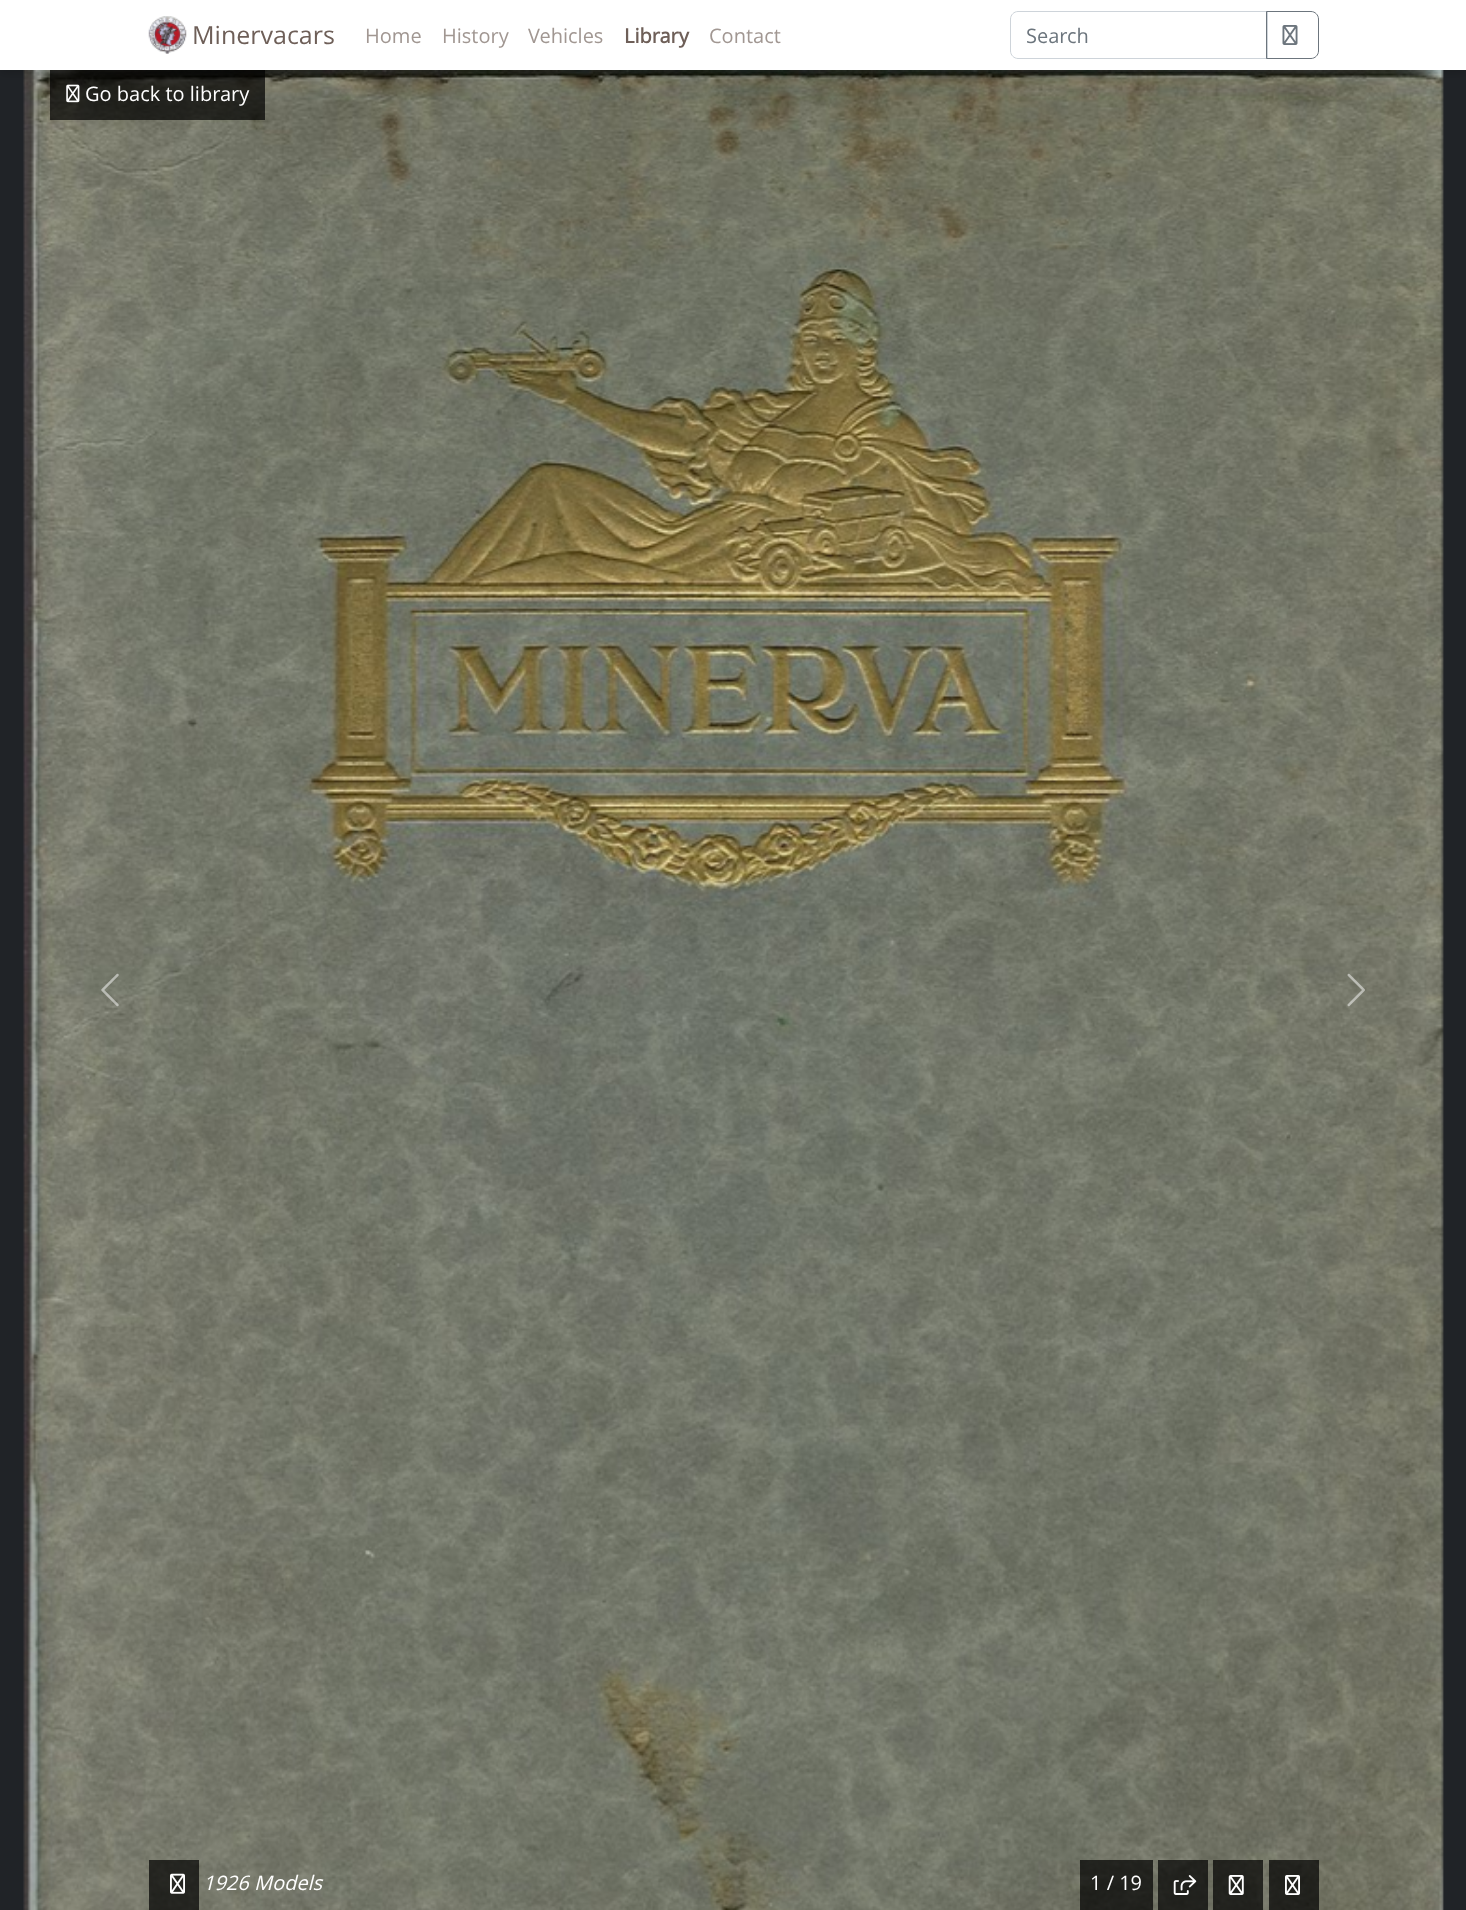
<svg xmlns="http://www.w3.org/2000/svg" xmlns:xlink="http://www.w3.org/1999/xlink" width="1466" height="1910" viewBox="0 0 1466 1910">
<style>
.cls-1{font:25px Open Sans;fill:#6e5f58}
.cls-2{font:20px Open Sans;fill:#a19792}
.cls-3{font:bold 20px Open Sans;fill:#6e5f58}
.cls-4{font:20px Open Sans;fill:#6c757d}
.cls-5{font:20px Open Sans;fill:#ffffff}
.cls-6{font:italic 20px Open Sans;fill:#ffffff}
</style>
<defs>
<clipPath id="clip1"><rect x="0" y="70" width="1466" height="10"/></clipPath>
</defs>
<rect width="100%" height="100%" fill="#ffffff"/>
<rect fill="#202327" x="0" y="70" width="1466" height="1840"/>
<image xlink:href="image2.png" x="23" y="70" width="1421" height="1840"/>
<rect fill="#000000" fill-opacity="0.7" x="50" y="70" width="215" height="50"/>
<image xlink:href="image5.png" x="66" y="84" width="14" height="19"/>
<g clip-path="url(#clip1)">
<rect fill="#000000" fill-opacity="0.15" filter="blur(5px)" x="0" y="4" width="1466" height="70"/>
</g>
<image xlink:href="image0.png" x="148" y="16" width="39" height="38"/>
<path fill="none" stroke="#ced4da" d="M1018 11.5H1267.5V58.5H1018C1014 58.5 1010.5 55 1010.5 51V19C1010.5 15 1014 11.5 1018 11.5Z"/>
<path fill="none" stroke="#6c757d" d="M1266.5 11.5H1311C1315 11.5 1318.5 15 1318.5 19V51C1318.5 55 1315 58.5 1311 58.5H1266.5Z"/>
<image xlink:href="image1.png" x="1282" y="25" width="16" height="20"/>
<image xlink:href="image3.png" x="101" y="973" width="18" height="34"/>
<image xlink:href="image4.png" x="1347" y="973" width="18" height="34"/>
<rect fill="#000000" fill-opacity="0.7" x="149" y="1860" width="50" height="50"/>
<image xlink:href="image6.png" x="170" y="1873" width="15" height="21"/>
<rect fill="#000000" fill-opacity="0.7" x="1080" y="1860" width="73" height="50"/>
<rect fill="#000000" fill-opacity="0.7" x="1158" y="1860" width="50" height="50"/>
<image xlink:href="image7.png" x="1173" y="1875" width="24" height="20"/>
<rect fill="#000000" fill-opacity="0.7" x="1213" y="1860" width="50" height="50"/>
<image xlink:href="image8.png" x="1228" y="1875" width="16" height="20"/>
<rect fill="#000000" fill-opacity="0.7" x="1269" y="1860" width="50" height="50"/>
<image xlink:href="image9.png" x="1285" y="1875" width="15" height="20"/>
<text class="cls-1" x="192" y="44">Minervacars</text>
<text class="cls-2" x="365" y="43">Home</text>
<text class="cls-2" x="442" y="43">History</text>
<text class="cls-2" x="528" y="43">Vehicles</text>
<text class="cls-3" x="624" y="43">Library</text>
<text class="cls-2" x="709" y="43">Contact</text>
<text class="cls-4" x="1026" y="43">Search</text>
<text class="cls-5" x="85" y="101">Go back to library</text>
<text class="cls-6" x="203" y="1890">1926 Models</text>
<text class="cls-5" x="1090" y="1890">1 / 19</text>
</svg>
